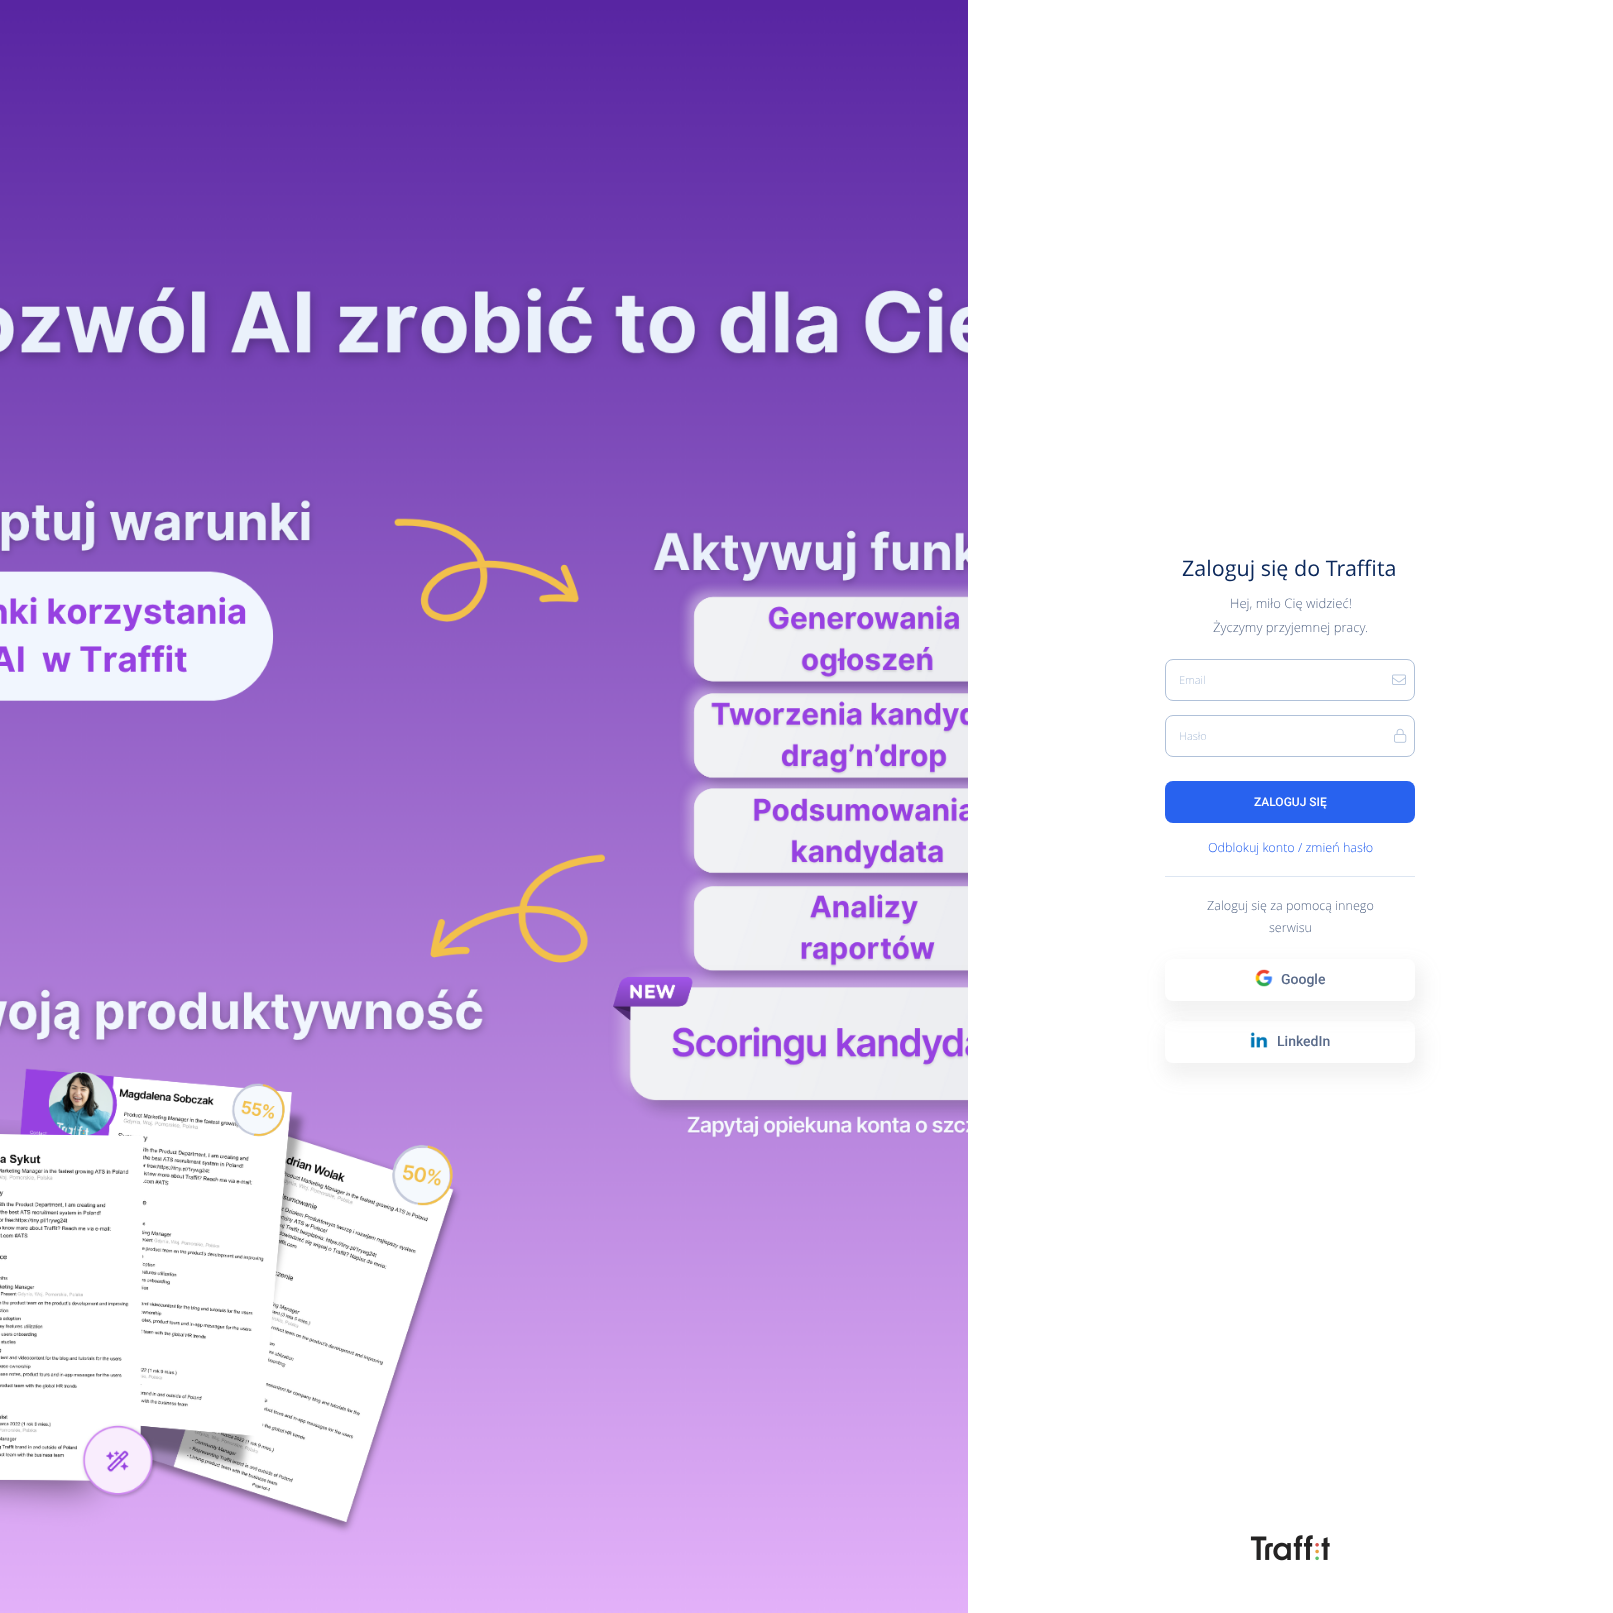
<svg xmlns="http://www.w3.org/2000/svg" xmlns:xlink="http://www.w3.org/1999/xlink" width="1613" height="1613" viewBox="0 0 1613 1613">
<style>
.cls-1{font:21.5px Open Sans;fill:#0b285b}
.cls-2{font:300 13.1px Open Sans;fill:#596a89}
.cls-3{font:300 11px Open Sans;fill:#b0c1d9}
.cls-4{font:500 12px Roboto;fill:#ffffff}
.cls-5{font:300 12.6px Open Sans;fill:#2862ef}
.cls-6{font:300 12.6px Open Sans;fill:#596a89}
.cls-7{font:500 14px Roboto;fill:#596a89}
</style>
<defs>
<clipPath id="clip1"><path d="M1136 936H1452V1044H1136ZM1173 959H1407C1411.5 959 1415 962.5 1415 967V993C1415 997.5 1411.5 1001 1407 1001H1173C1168.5 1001 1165 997.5 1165 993V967C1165 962.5 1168.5 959 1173 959Z" clip-rule="evenodd"/></clipPath>
<clipPath id="clip2"><path d="M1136 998H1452V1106H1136ZM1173 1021H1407C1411.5 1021 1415 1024.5 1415 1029V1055C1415 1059.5 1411.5 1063 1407 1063H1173C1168.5 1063 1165 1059.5 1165 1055V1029C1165 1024.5 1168.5 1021 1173 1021Z" clip-rule="evenodd"/></clipPath>
</defs>
<rect width="100%" height="100%" fill="#ffffff"/>
<image xlink:href="image0.png" x="0" y="0" width="968" height="1613"/>
<rect fill="none" stroke="#b0c1d9" x="1165.5" y="659.5" width="249" height="41" rx="7.5"/>
<image xlink:href="image1.png" x="1392" y="674" width="14" height="11"/>
<rect fill="none" stroke="#b0c1d9" x="1165.5" y="715.5" width="249" height="41" rx="7.5"/>
<image xlink:href="image2.png" x="1394" y="728" width="13" height="15"/>
<rect fill="#2862ef" x="1165" y="781" width="250" height="42" rx="8"/>
<rect fill="#dde6f2" x="1165" y="876" width="250" height="1"/>
<g clip-path="url(#clip1)">
<rect fill="#828282" fill-opacity="0.1" filter="blur(9px)" x="1164" y="964" width="260" height="52" rx="13"/>
</g>
<image xlink:href="image3.png" x="1255" y="969" width="18" height="18"/>
<g clip-path="url(#clip2)">
<rect fill="#828282" fill-opacity="0.1" filter="blur(9px)" x="1164" y="1026" width="260" height="52" rx="13"/>
</g>
<image xlink:href="image4.png" x="1250" y="1032" width="18" height="16"/>
<image xlink:href="image5.png" x="1250" y="1535" width="80" height="26"/>
<text class="cls-1" x="1182" y="576">Zaloguj się do Traffita</text>
<text class="cls-2" x="1230" y="608">Hej, miło Cię widzieć!</text>
<text class="cls-2" x="1213" y="632">Życzymy przyjemnej pracy.</text>
<text class="cls-3" x="1179" y="684">Email</text>
<text class="cls-3" x="1179" y="740">Hasło</text>
<text class="cls-4" x="1254" y="806">ZALOGUJ SIĘ</text>
<text class="cls-5" x="1208" y="852">Odblokuj konto / zmień hasło</text>
<text class="cls-6" x="1207" y="910">Zaloguj się za pomocą innego</text>
<text class="cls-6" x="1269" y="932">serwisu</text>
<text class="cls-7" x="1281" y="984">Google</text>
<text class="cls-7" x="1277" y="1046">LinkedIn</text>
</svg>
